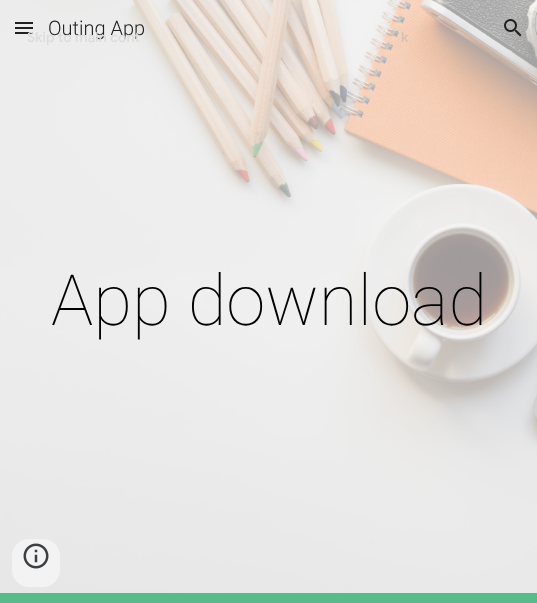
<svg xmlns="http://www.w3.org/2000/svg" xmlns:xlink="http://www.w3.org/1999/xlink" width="537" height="603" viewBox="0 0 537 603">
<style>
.cls-1{font:300 20px Roboto;fill:#212121}
.cls-2{font:100 70.75px Roboto;fill:#000000}
.cls-3{font:500 14px Google Sans;letter-spacing:0.1px;fill:#dddcdb}
.cls-4{font:500 14px Google Sans;letter-spacing:0.1px;fill:#d6c0b4}
</style>
<rect width="100%" height="100%" fill="#ffffff"/>
<image xlink:href="image1.png" x="0" y="0" width="537" height="593"/>
<rect fill="#212121" x="15" y="22" width="18" height="2"/>
<rect fill="#212121" x="15" y="27" width="18" height="2"/>
<rect fill="#212121" x="15" y="32" width="18" height="2"/>
<image xlink:href="image0.png" x="504" y="19" width="18" height="18"/>
<rect fill="#57bb8a" x="0" y="593" width="537" height="10"/>
<rect fill="#f3f3f3" x="12" y="539" width="48" height="48" rx="17"/>
<image xlink:href="image2.png" x="23" y="543" width="26" height="26"/>
<text class="cls-1" x="48" y="35">Outing App</text>
<text class="cls-2" x="51" y="325">App download</text>
<text class="cls-3" x="27" y="42">Skip to main cont</text>
<text class="cls-4" x="401" y="42">k</text>
</svg>
